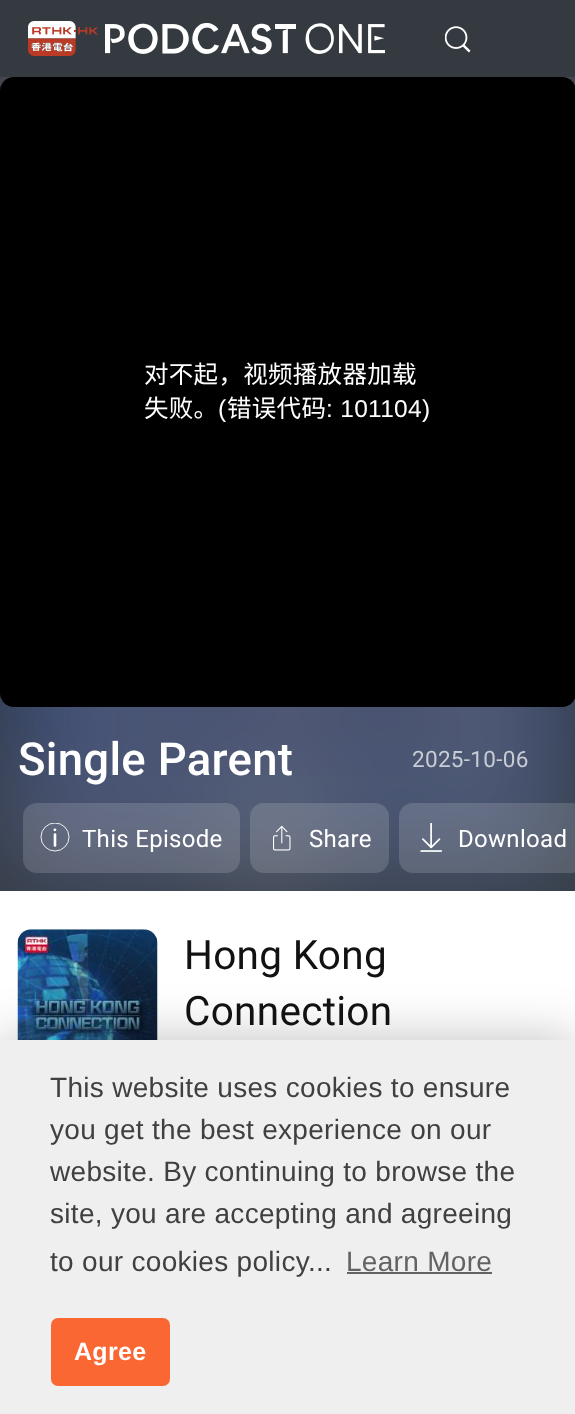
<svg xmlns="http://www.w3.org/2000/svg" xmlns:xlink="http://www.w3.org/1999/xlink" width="575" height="1414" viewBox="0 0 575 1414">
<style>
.cls-1{font:24.5px Noto Sans CJK SC;letter-spacing:0.3px;fill:#ffffff}
.cls-2{font:24.5px Liberation Sans;letter-spacing:0.3px;fill:#ffffff}
.cls-3{font:500 45.5px Roboto;letter-spacing:0.3px;fill:#ffffff}
.cls-4{font:22.5px Roboto;letter-spacing:0.3px;fill:#c9ccd5}
.cls-5{font:24px Roboto;letter-spacing:0.3px;fill:#ffffff}
.cls-6{font:40.5px Roboto;letter-spacing:0.3px;fill:#121212}
.cls-7{font:28px Liberation Sans;letter-spacing:0.3px;fill:#404040}
.cls-8{font:28px Liberation Sans;letter-spacing:0.3px;fill:#636363}
.cls-9{font:bold 25px Liberation Sans;letter-spacing:0.3px;fill:#ffffff}
</style>
<defs>
<clipPath id="clip1"><rect x="40" y="823" width="30" height="29"/></clipPath>
</defs>
<rect width="100%" height="100%" fill="#ffffff"/>
<rect fill="#343a40" x="0" y="0" width="575" height="891"/>
<image xlink:href="image0.png" x="28" y="21" width="70" height="35"/>
<image xlink:href="image1.png" x="105" y="23" width="280" height="32"/>
<image xlink:href="image2.png" x="445" y="26" width="26" height="27"/>
<image xlink:href="image3.png" x="0" y="77" width="575" height="814"/>
<rect fill="#000000" x="0" y="77" width="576" height="630" rx="14"/>
<rect fill="#ffffff" fill-opacity="0.15" x="23" y="803" width="217" height="70" rx="14"/>
<g clip-path="url(#clip1)">
<circle fill="none" stroke="#ffffff" stroke-width="0.9" cx="55" cy="837" r="14"/>
</g>
<path fill="none" stroke="#ffffff" stroke-width="2.6" stroke-linecap="round" stroke-linejoin="round" d="M55 834.5V845.5"/>
<circle fill="#ffffff" cx="54.9" cy="829.8" r="1.4"/>
<rect fill="#ffffff" fill-opacity="0.15" x="250" y="803" width="139" height="70" rx="14"/>
<image xlink:href="image4.png" x="273" y="826" width="18" height="25"/>
<rect fill="#ffffff" fill-opacity="0.15" x="399" y="803" width="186" height="70" rx="14"/>
<image xlink:href="image5.png" x="420" y="823" width="22" height="29"/>
<image xlink:href="image6.png" x="17" y="929" width="141" height="111"/>
<rect fill="#000000" fill-opacity="0.25" filter="blur(26px)" x="0" y="1040" width="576" height="374"/>
<rect fill="#efefef" x="0" y="1040" width="575" height="374"/>
<rect fill="#636363" x="347" y="1272" width="145" height="2"/>
<rect fill="#fa6732" x="51" y="1318" width="119" height="68" rx="7"/>
<text class="cls-1"><tspan x="144" y="383">对不起，视频播放器加载</tspan><tspan x="144" y="417">失败。</tspan></text>
<text class="cls-2" x="218" y="417">(</text>
<text class="cls-1" x="227" y="417">错误代码</text>
<text class="cls-2" x="326" y="417">: 101104)</text>
<text class="cls-3" x="18" y="775">Single Parent</text>
<text class="cls-4" x="412" y="767">2025-10-06</text>
<text class="cls-5" x="82" y="847">This Episode</text>
<text class="cls-5" x="309" y="847">Share</text>
<text class="cls-5" x="458" y="847">Download</text>
<text class="cls-6"><tspan x="184" y="969">Hong Kong</tspan><tspan x="184" y="1025">Connection</tspan></text>
<text class="cls-7"><tspan x="50" y="1097">This website uses cookies to ensure</tspan><tspan x="50" y="1139">you get the best experience on our</tspan><tspan x="50" y="1181">website. By continuing to browse the</tspan><tspan x="50" y="1223">site, you are accepting and agreeing</tspan><tspan x="50" y="1271">to our cookies policy...</tspan></text>
<text class="cls-8" x="346" y="1271">Learn More</text>
<text class="cls-9" x="74" y="1360">Agree</text>
</svg>
